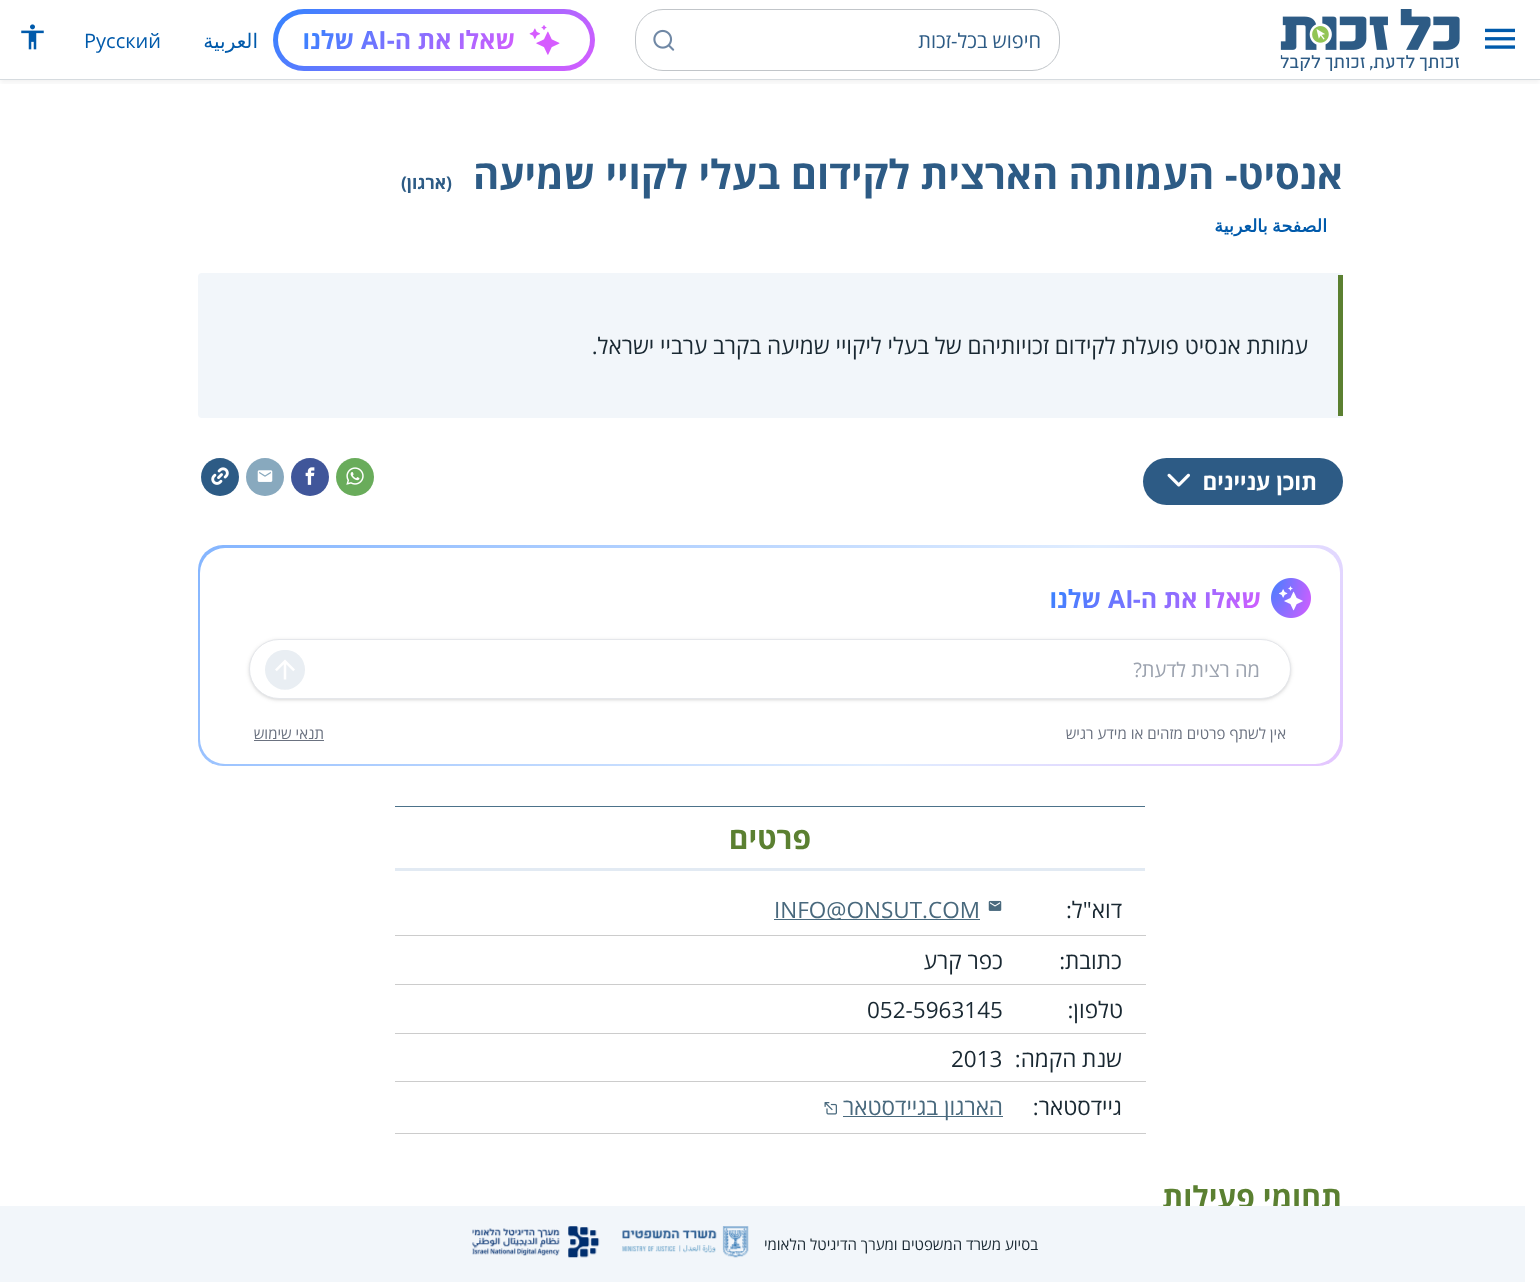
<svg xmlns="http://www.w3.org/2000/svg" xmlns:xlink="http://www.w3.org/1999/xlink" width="1540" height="1282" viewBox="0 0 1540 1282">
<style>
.cls-1{font:20px Open Sans;direction:rtl;fill:#2d5b85}
.cls-2{font:bold 25px Open Sans;direction:rtl;fill:url(#g1)}
.cls-3{font:bold 25px Open Sans;fill:url(#g1)}
.cls-4{font:20px DejaVu Sans;direction:rtl;fill:#005aab}
.cls-5{font:20px Open Sans;fill:#005aab}
.cls-6{font:bold 40px Open Sans;direction:rtl;fill:#2d5b85}
.cls-7{font:bold 17.5px Open Sans;direction:rtl;fill:#2d5b85}
.cls-8{font:bold 17.5px DejaVu Sans;direction:rtl;fill:#005aab}
.cls-9{font:22.5px Open Sans;direction:rtl;fill:#192832}
.cls-10{font:bold 22.5px Open Sans;direction:rtl;fill:#ffffff}
.cls-11{font:bold 25px Open Sans;direction:rtl;fill:url(#g2)}
.cls-12{font:bold 25px Open Sans;fill:url(#g2)}
.cls-13{font:20px Open Sans;direction:rtl;fill:#9ca3af}
.cls-14{font:15px Open Sans;direction:rtl;fill:#6b7280}
.cls-15{font:bold 30px Open Sans;direction:rtl;fill:#5b8031}
.cls-16{font:22.5px Open Sans;fill:#49697d}
.cls-17{font:22.5px Open Sans;fill:#192832}
.cls-18{font:22.5px Open Sans;direction:rtl;fill:#49697d}
.cls-19{font:15px Open Sans;direction:rtl;fill:#192832}
</style>
<defs>
<clipPath id="clip1"><rect x="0" y="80" width="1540" height="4"/></clipPath>
<linearGradient id="g1" gradientUnits="userSpaceOnUse" x1="347" y1="-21" x2="470" y2="101"><stop offset="0" stop-color="#3284ff"/><stop offset="1" stop-color="#d65cff"/></linearGradient>
<linearGradient id="g2" gradientUnits="userSpaceOnUse" x1="1094" y1="537" x2="1217" y2="660"><stop offset="0" stop-color="#3284ff"/><stop offset="1" stop-color="#d65cff"/></linearGradient>
<linearGradient id="g3" gradientUnits="userSpaceOnUse" x1="338" y1="-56" x2="530" y2="136"><stop offset="0" stop-color="#3284ff"/><stop offset="1" stop-color="#d65cff"/></linearGradient>
<linearGradient id="g4" gradientUnits="userSpaceOnUse" x1="659" y1="83" x2="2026" y2="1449"><stop offset="0" stop-color="#84b5ff"/><stop offset="0.33" stop-color="#e0edff"/><stop offset="0.67" stop-color="#e79dff"/><stop offset="1" stop-color="#f7dfff"/></linearGradient>
</defs>
<rect width="100%" height="100%" fill="#ffffff"/>
<g clip-path="url(#clip1)">
<rect fill="#000000" fill-opacity="0.05" filter="blur(2.5px)" x="0" y="3" width="1540" height="80"/>
</g>
<rect fill="#d6dbdf" x="0" y="79" width="1540" height="1"/>
<image xlink:href="image0.png" x="1485" y="28" width="30" height="21"/>
<image xlink:href="image1.png" x="1280" y="9" width="180" height="62"/>
<rect fill="none" stroke="#c1c5c9" x="635.5" y="9.5" width="424" height="61" rx="27.5"/>
<image xlink:href="image2.png" x="653" y="29" width="22" height="22"/>
<rect fill="url(#g3)" x="273" y="9" width="322" height="62" rx="31"/>
<rect fill="#ffffff" x="278" y="14" width="312" height="52" rx="26"/>
<image xlink:href="image3.png" x="529" y="25" width="31" height="30"/>
<image xlink:href="image4.png" x="21" y="24" width="23" height="26"/>
<rect fill="#f2f6fa" x="198" y="273" width="1145" height="145" rx="4"/>
<rect fill="#5b8031" x="1338" y="275" width="5" height="141"/>
<rect fill="#2d5b85" x="1143" y="458" width="200" height="47" rx="23.5"/>
<image xlink:href="image5.png" x="1167" y="473" width="23" height="14"/>
<circle fill="#69ac5b" cx="355" cy="477" r="19"/>
<image xlink:href="image6.png" x="346" y="467" width="18" height="18"/>
<circle fill="#40569a" cx="310" cy="477" r="19"/>
<image xlink:href="image7.png" x="305" y="467" width="10" height="18"/>
<circle fill="#88a9be" cx="265" cy="477" r="19"/>
<image xlink:href="image8.png" x="257" y="470" width="16" height="12"/>
<circle fill="#2d5b85" cx="220" cy="477" r="19"/>
<image xlink:href="image9.png" x="211" y="467" width="18" height="18"/>
<rect fill="url(#g4)" x="198" y="545" width="1145" height="221" rx="25"/>
<rect fill="#ffffff" x="200" y="548" width="1140" height="216" rx="25"/>
<image xlink:href="image10.png" x="1271" y="578" width="40" height="40"/>
<rect fill="#000000" fill-opacity="0.06" filter="blur(1px)" x="249" y="640" width="1042" height="60" rx="30"/>
<rect fill="#000000" fill-opacity="0.1" filter="blur(2px)" x="249" y="640" width="1042" height="60" rx="30"/>
<rect fill="#ffffff" stroke="#e5e7eb" x="249.5" y="639.5" width="1041" height="59" rx="29.5"/>
<image xlink:href="image11.png" x="265" y="650" width="40" height="40"/>
<rect fill="#6b7280" x="254" y="740" width="70" height="1"/>
<rect fill="#4c728a" x="395" y="806" width="750" height="1"/>
<rect fill="#e2eaf3" x="395" y="868" width="750" height="3"/>
<rect fill="#cccccc" x="395" y="935" width="751" height="1"/>
<image xlink:href="image12.png" x="988" y="900" width="14" height="11"/>
<rect fill="#49697d" x="774" y="919" width="206" height="1"/>
<rect fill="#cccccc" x="395" y="984" width="751" height="1"/>
<rect fill="#cccccc" x="395" y="1033" width="751" height="1"/>
<rect fill="#cccccc" x="395" y="1081" width="751" height="1"/>
<rect fill="#cccccc" x="395" y="1133" width="751" height="1"/>
<rect fill="#49697d" x="843" y="1116" width="160" height="1"/>
<image xlink:href="image13.png" x="824" y="1102" width="13" height="13"/>
<text class="cls-1" x="1041" y="48">חיפוש בכל-זכות</text>
<text class="cls-2" x="515" y="49">שאלו את ה-</text>
<text class="cls-3" x="361" y="49">AI</text>
<text class="cls-2" x="354" y="49">שלנו</text>
<text class="cls-4" x="258" y="48">العربية</text>
<text class="cls-5" x="84" y="48">Русский</text>
<text class="cls-6" x="1343" y="189">אנסיט- העמותה הארצית לקידום בעלי לקויי שמיעה</text>
<text class="cls-7" x="452" y="189">(ארגון)</text>
<text class="cls-8" x="1327" y="232" word-spacing="-1">الصفحة بالعربية</text>
<text class="cls-9" x="1308" y="354">עמותת אנסיט פועלת לקידום זכויותיהם של בעלי ליקויי שמיעה בקרב ערביי ישראל.</text>
<text class="cls-10" x="1317" y="490">תוכן עניינים</text>
<text class="cls-11" x="1261" y="608">שאלו את ה-</text>
<text class="cls-12" x="1108" y="608">AI</text>
<text class="cls-11" x="1101" y="608">שלנו</text>
<text class="cls-13" x="1260" y="677">מה רצית לדעת?</text>
<text class="cls-14" x="1286" y="739">אין לשתף פרטים מזהים או מידע רגיש</text>
<text class="cls-14" x="324" y="739">תנאי שימוש</text>
<text class="cls-15" x="811" y="849">פרטים</text>
<text class="cls-9" x="1122" y="918">דוא"ל:</text>
<text class="cls-16" x="774" y="918">INFO@ONSUT.COM</text>
<text class="cls-9" x="1122" y="969">כתובת:</text>
<text class="cls-9" x="1003" y="969">כפר קרע</text>
<text class="cls-9" x="1123" y="1018">טלפון:</text>
<text class="cls-17" x="867" y="1018">052-5963145</text>
<text class="cls-9" x="1122" y="1067">שנת הקמה:</text>
<text class="cls-17" x="951" y="1067">2013</text>
<text class="cls-9" x="1122" y="1115">גיידסטאר:</text>
<text class="cls-18" x="1003" y="1115">הארגון בגיידסטאר</text>
<text class="cls-15" x="1342" y="1208">תחומי פעילות</text>
<rect fill="#f2f6fa" x="0" y="1206" width="1525" height="76"/>
<text class="cls-19" x="1038" y="1250">בסיוע משרד המשפטים ומערך הדיגיטל הלאומי</text>
<image xlink:href="image14.png" x="622" y="1226" width="127" height="32"/>
<image xlink:href="image15.png" x="472" y="1226" width="128" height="32"/>
</svg>
